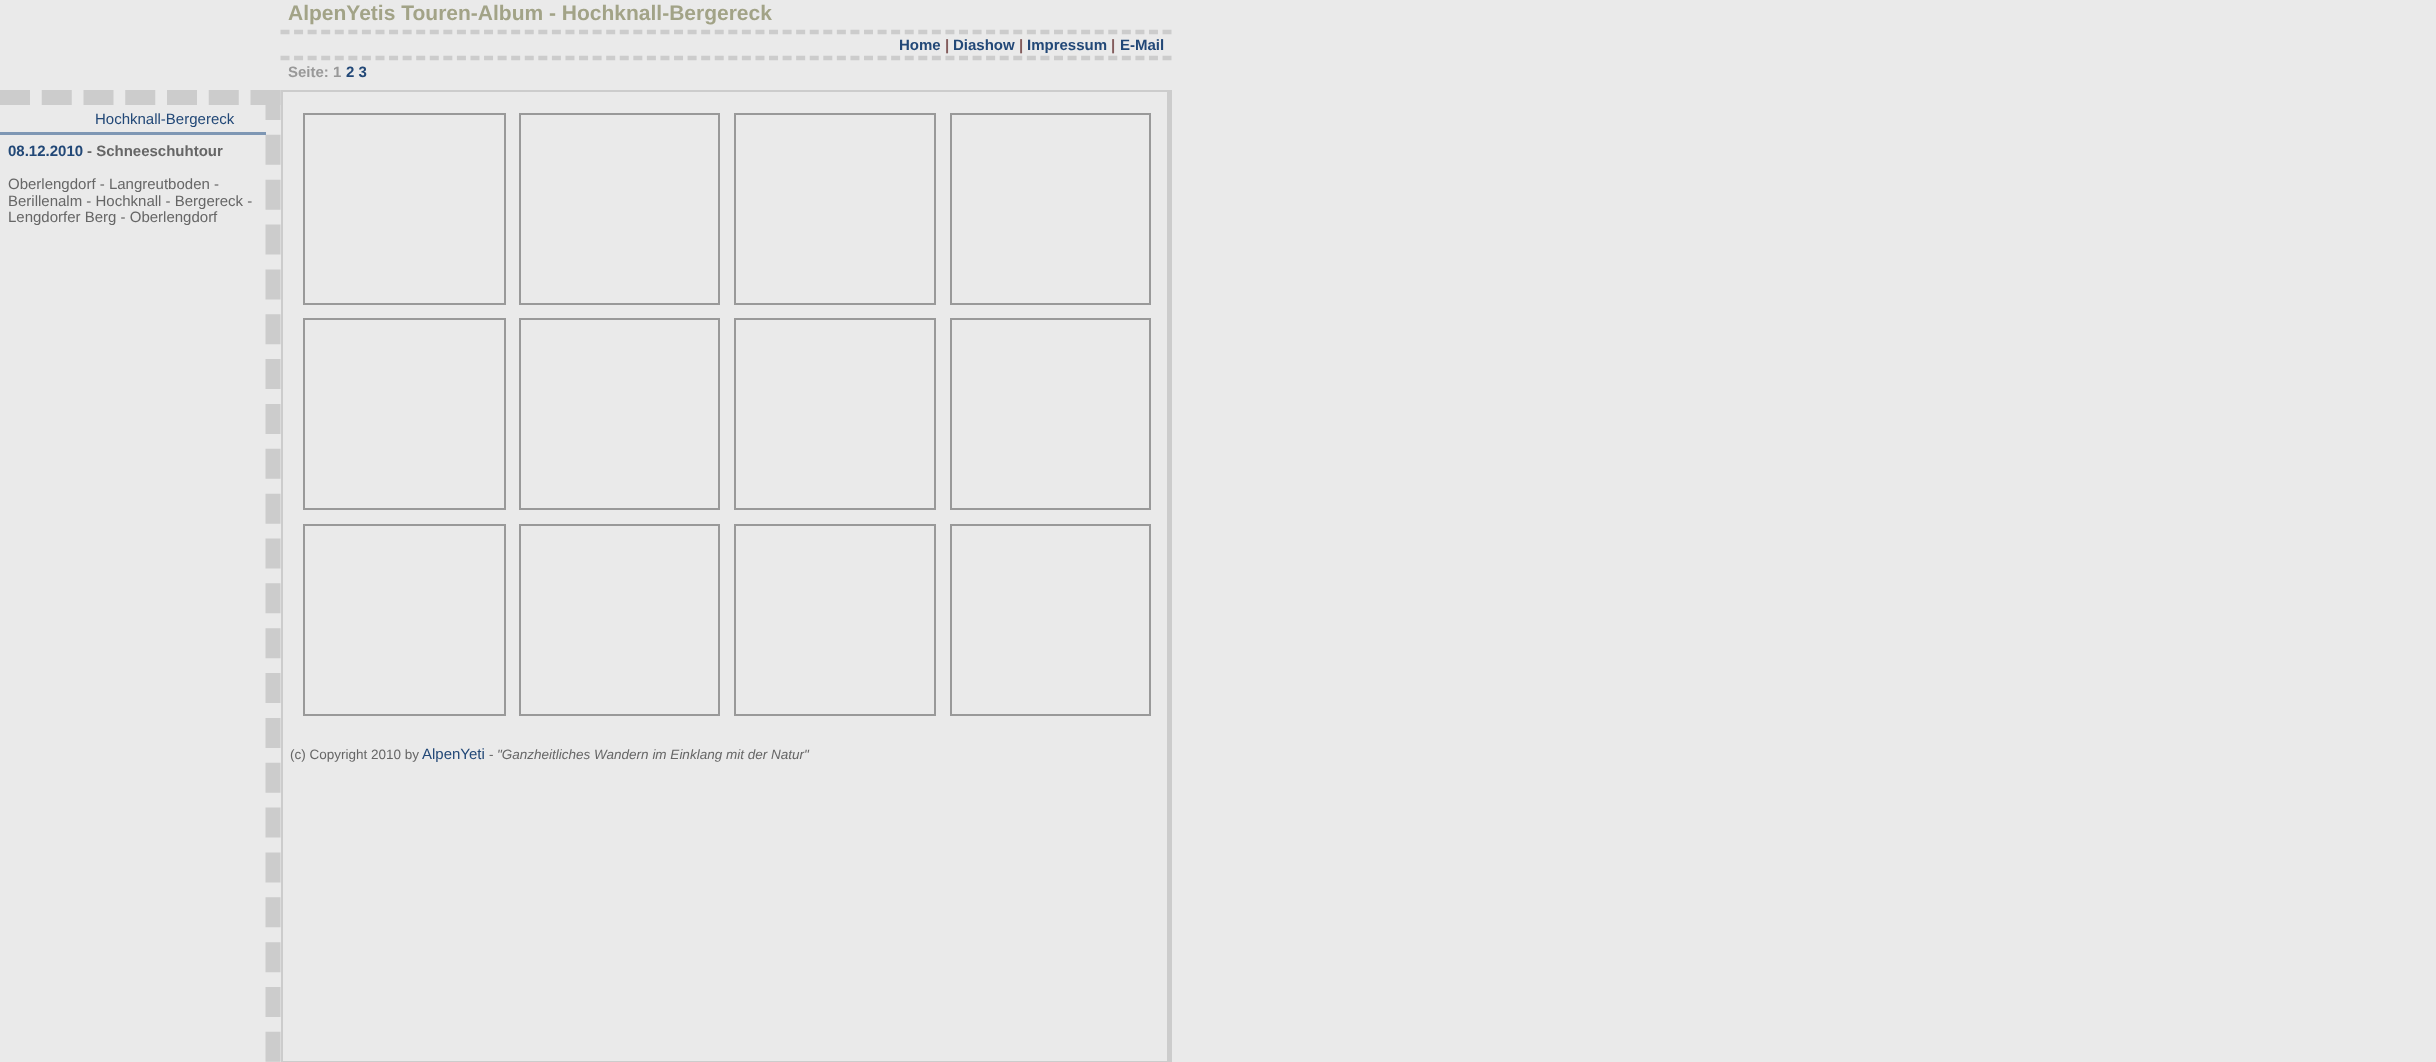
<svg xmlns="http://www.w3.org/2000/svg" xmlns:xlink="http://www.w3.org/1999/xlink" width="2436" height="1062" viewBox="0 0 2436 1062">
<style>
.cls-1{font:bold 21px Liberation Sans;fill:#a2a387}
.cls-2{font:bold 15px Liberation Sans;fill:#224877}
.cls-3{font:bold 15px Liberation Sans;fill:#835c5c}
.cls-4{font:bold 15px Liberation Sans;fill:#999999}
.cls-5{font:15px Liberation Sans;fill:#224877}
.cls-6{font:bold 15px Liberation Sans;fill:#666666}
.cls-7{font:15px Liberation Sans;fill:#666666}
.cls-8{font:13.5px Liberation Sans;fill:#666666}
.cls-9{font:italic 13.5px Liberation Sans;fill:#666666}
</style>
<rect width="100%" height="100%" fill="#eaeaea"/>
<path fill="none" stroke="#cccccc" stroke-width="4.5" stroke-dasharray="9 4.57" d="M280.5 32H1171.5"/>
<path fill="none" stroke="#cccccc" stroke-width="4.5" stroke-dasharray="9 4.57" d="M280.5 58H1171.5"/>
<path fill="none" stroke="#cccccc" stroke-width="15" stroke-dasharray="30 11.75" d="M0 97.5H280.5"/>
<path fill="none" stroke="#cccccc" stroke-width="15" stroke-dasharray="30 14.85" d="M273 90V1062"/>
<rect fill="#7e97b4" x="0" y="132" width="266" height="3"/>
<rect fill="#cccccc" x="281" y="90" width="891" height="2"/>
<rect fill="#cccccc" x="1167" y="90" width="5" height="972"/>
<rect fill="#cccccc" x="281" y="1061" width="891" height="1"/>
<rect fill="#cccccc" x="281" y="90" width="2" height="972"/>
<rect fill="none" stroke="#999999" stroke-width="2" x="304" y="114" width="201" height="190"/>
<rect fill="none" stroke="#999999" stroke-width="2" x="520" y="114" width="199" height="190"/>
<rect fill="none" stroke="#999999" stroke-width="2" x="735" y="114" width="200" height="190"/>
<rect fill="none" stroke="#999999" stroke-width="2" x="951" y="114" width="199" height="190"/>
<rect fill="none" stroke="#999999" stroke-width="2" x="304" y="319" width="201" height="190"/>
<rect fill="none" stroke="#999999" stroke-width="2" x="520" y="319" width="199" height="190"/>
<rect fill="none" stroke="#999999" stroke-width="2" x="735" y="319" width="200" height="190"/>
<rect fill="none" stroke="#999999" stroke-width="2" x="951" y="319" width="199" height="190"/>
<rect fill="none" stroke="#999999" stroke-width="2" x="304" y="525" width="201" height="190"/>
<rect fill="none" stroke="#999999" stroke-width="2" x="520" y="525" width="199" height="190"/>
<rect fill="none" stroke="#999999" stroke-width="2" x="735" y="525" width="200" height="190"/>
<rect fill="none" stroke="#999999" stroke-width="2" x="951" y="525" width="199" height="190"/>
<text class="cls-1" x="288" y="20">AlpenYetis Touren-Album - Hochknall-Bergereck</text>
<text class="cls-2" x="899" y="50">Home</text>
<text class="cls-3" x="945" y="50">|</text>
<text class="cls-2" x="953" y="50">Diashow</text>
<text class="cls-3" x="1019" y="50">|</text>
<text class="cls-2" x="1027" y="50">Impressum</text>
<text class="cls-3" x="1111" y="50">|</text>
<text class="cls-2" x="1120" y="50">E-Mail</text>
<text class="cls-4" x="288" y="77">Seite: 1</text>
<text class="cls-2" x="346" y="77">2 3</text>
<text class="cls-5" x="95" y="124">Hochknall-Bergereck</text>
<text class="cls-2" x="8" y="156">08.12.2010</text>
<text class="cls-6" x="87" y="156">- Schneeschuhtour</text>
<text class="cls-7"><tspan x="8" y="189">Oberlengdorf - Langreutboden -</tspan><tspan x="8" y="206">Berillenalm - Hochknall - Bergereck -</tspan><tspan x="8" y="222">Lengdorfer Berg - Oberlengdorf</tspan></text>
<text class="cls-8" x="290" y="759">(c) Copyright 2010 by</text>
<text class="cls-5" x="422" y="759">AlpenYeti</text>
<text class="cls-8" x="489" y="759">-</text>
<text class="cls-9" x="497" y="759">"Ganzheitliches Wandern im Einklang mit der Natur"</text>
</svg>
